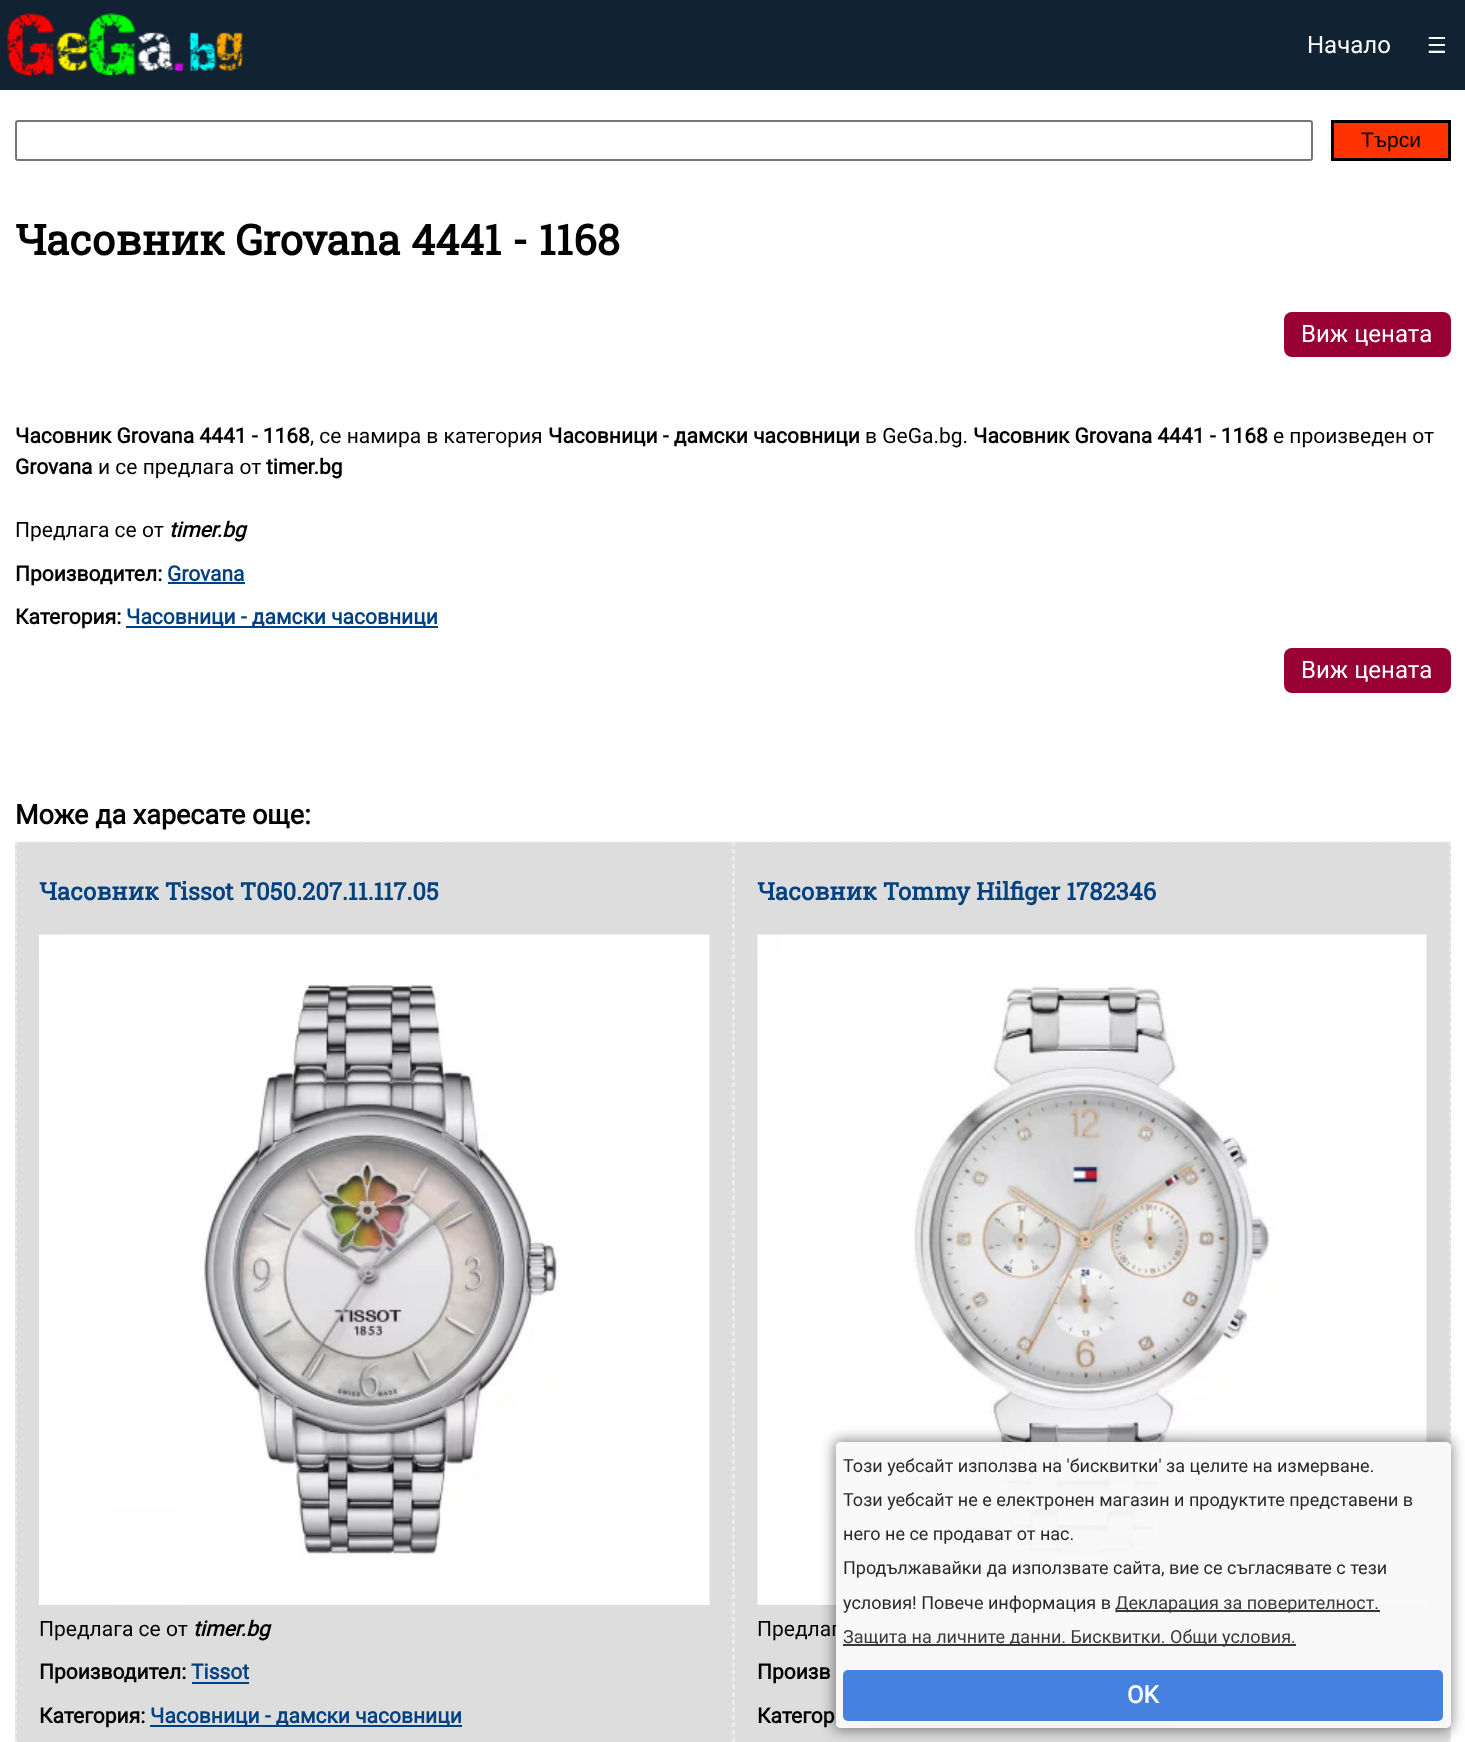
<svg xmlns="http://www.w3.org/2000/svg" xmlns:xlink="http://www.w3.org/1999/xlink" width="1465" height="1742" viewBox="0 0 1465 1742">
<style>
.cls-1{font:24px Roboto;fill:#ffffff}
.cls-2{font:22px DejaVu Sans;fill:#ffffff}
.cls-3{font:21px Liberation Sans;fill:#000000}
.cls-4{font:bold 42px Roboto Slab;fill:#000000}
.cls-5{font:bold 21px Roboto;fill:#000000}
.cls-6{font:21px Roboto;fill:#000000}
.cls-7{font:italic bold 21px Roboto;fill:#000000}
.cls-8{font:bold 21px Roboto;fill:#024080}
.cls-9{font:bold 27px Roboto;fill:#000000}
.cls-10{font:bold 24px Roboto Slab;fill:#024080}
.cls-11{font:18px Roboto;fill:#282828}
.cls-12{font:18px Roboto;fill:#393939}
.cls-13{font:bold 24px Roboto;fill:#ffffff}
</style>
<defs>
<clipPath id="clip1"><path d="M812 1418H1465V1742H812ZM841 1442H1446C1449 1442 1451 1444 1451 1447V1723C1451 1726 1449 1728 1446 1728H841C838 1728 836 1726 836 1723V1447C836 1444 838 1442 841 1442Z" clip-rule="evenodd"/></clipPath>
</defs>
<rect width="100%" height="100%" fill="#ffffff"/>
<rect fill="#112233" x="0" y="0" width="1465" height="90"/>
<image xlink:href="image0.png" x="7" y="13" width="236" height="62"/>
<rect fill="none" stroke="#767676" stroke-width="2" x="16" y="121" width="1296" height="39" rx="2"/>
<rect fill="#ff3300" stroke="#000000" stroke-width="3" x="1332.5" y="121.5" width="117" height="38"/>
<rect fill="#990033" x="1284" y="312" width="167" height="45" rx="8"/>
<rect fill="#024080" x="168" y="582" width="77" height="2"/>
<rect fill="#024080" x="126" y="626" width="312" height="2"/>
<rect fill="#990033" x="1284" y="648" width="167" height="45" rx="8"/>
<rect fill="#dddddd" x="15" y="842" width="1436" height="900"/>
<path fill="none" stroke="#eeeeee" stroke-width="1.5" stroke-dasharray="4.5 3.01" d="M15 842H733.5"/>
<path fill="none" stroke="#eeeeee" stroke-width="1.5" stroke-dasharray="4.5 3.03" d="M733 841.5V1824"/>
<path fill="none" stroke="#eeeeee" stroke-width="1.5" stroke-dasharray="4.5 3.03" d="M16 841.5V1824"/>
<image xlink:href="image1.png" x="39" y="934" width="671" height="671"/>
<rect fill="#024080" x="192" y="1682" width="57" height="2"/>
<rect fill="#024080" x="150" y="1725" width="312" height="2"/>
<path fill="none" stroke="#eeeeee" stroke-width="1.5" stroke-dasharray="4.5 3" d="M733.5 842H1450.5"/>
<path fill="none" stroke="#eeeeee" stroke-width="1.5" stroke-dasharray="4.5 3.03" d="M1450 841.5V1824"/>
<path fill="none" stroke="#eeeeee" stroke-width="1.5" stroke-dasharray="4.5 3.03" d="M734 841.5V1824"/>
<image xlink:href="image2.png" x="757" y="934" width="670" height="671"/>
<rect fill="#024080" x="909" y="1682" width="143" height="2"/>
<rect fill="#024080" x="869" y="1725" width="312" height="2"/>
<g clip-path="url(#clip1)">
<rect fill="#000000" fill-opacity="0.46" filter="blur(7px)" x="834" y="1440" width="618" height="290" rx="6"/>
</g>
<text class="cls-1" x="1307" y="53">Начало</text>
<text class="cls-2" x="1427" y="53">☰</text>
<text class="cls-3" x="1361" y="147">Търси</text>
<text class="cls-4" x="15" y="255">Часовник Grovana 4441 - 1168</text>
<text class="cls-1" x="1301" y="342">Виж цената</text>
<text class="cls-5" x="15" y="443">Часовник Grovana 4441 - 1168</text>
<text class="cls-6" x="310" y="443">, се намира в категория</text>
<text class="cls-5" x="548" y="443">Часовници - дамски часовници</text>
<text class="cls-6" x="865" y="443">в GeGa.bg.</text>
<text class="cls-5" x="973" y="443">Часовник Grovana 4441 - 1168</text>
<text class="cls-6" x="1273" y="443">е произведен от</text>
<text class="cls-5" x="15" y="474">Grovana</text>
<text class="cls-6" x="98" y="474">и се предлага от</text>
<text class="cls-5" x="266" y="474">timer.bg</text>
<text class="cls-6" x="15" y="537">Предлага се от</text>
<text class="cls-7" x="169" y="537">timer.bg</text>
<text class="cls-5" x="15" y="581">Производител:</text>
<text class="cls-8" x="167" y="581">Grovana</text>
<text class="cls-5" x="15" y="624">Категория:</text>
<text class="cls-8" x="126" y="624">Часовници - дамски часовници</text>
<text class="cls-1" x="1301" y="678">Виж цената</text>
<text class="cls-9" x="15" y="824">Може да харесате още:</text>
<text class="cls-10" x="39" y="900">Часовник Tissot T050.207.11.117.05</text>
<text class="cls-6" x="39" y="1636">Предлага се от</text>
<text class="cls-7" x="193" y="1636">timer.bg</text>
<text class="cls-5" x="39" y="1679">Производител:</text>
<text class="cls-8" x="191" y="1679">Tissot</text>
<text class="cls-5" x="39" y="1723">Категория:</text>
<text class="cls-8" x="150" y="1723">Часовници - дамски часовници</text>
<text class="cls-10" x="757" y="900">Часовник Tommy Hilfiger 1782346</text>
<text class="cls-6" x="757" y="1636">Предлаг</text>
<text class="cls-5" x="757" y="1679">Произв</text>
<text class="cls-5" x="757" y="1723">Категор</text>
<rect fill="#f9f9f9" fill-opacity="0.97" x="836" y="1442" width="615" height="286" rx="5"/>
<text class="cls-11"><tspan x="843" y="1472">Този уебсайт използва на 'бисквитки' за целите на измерване.</tspan><tspan x="843" y="1506">Този уебсайт не е електронен магазин и продуктите представени в</tspan><tspan x="843" y="1540">него не се продават от нас.</tspan><tspan x="843" y="1574">Продължавайки да използвате сайта, вие се съгласявате с тези</tspan><tspan x="843" y="1609">условия! Повече информация в</tspan></text>
<rect fill="#383838" x="1116" y="1610" width="264" height="2"/>
<text class="cls-12" x="1115" y="1609">Декларация за поверителност.</text>
<rect fill="#383838" x="843" y="1644" width="453" height="2"/>
<text class="cls-12" x="843" y="1643">Защита на личните данни. Бисквитки. Общи условия.</text>
<rect fill="#3f7edf" fill-opacity="0.97" x="843" y="1670" width="600" height="51" rx="5"/>
<text class="cls-13" x="1127" y="1703">OK</text>
</svg>
